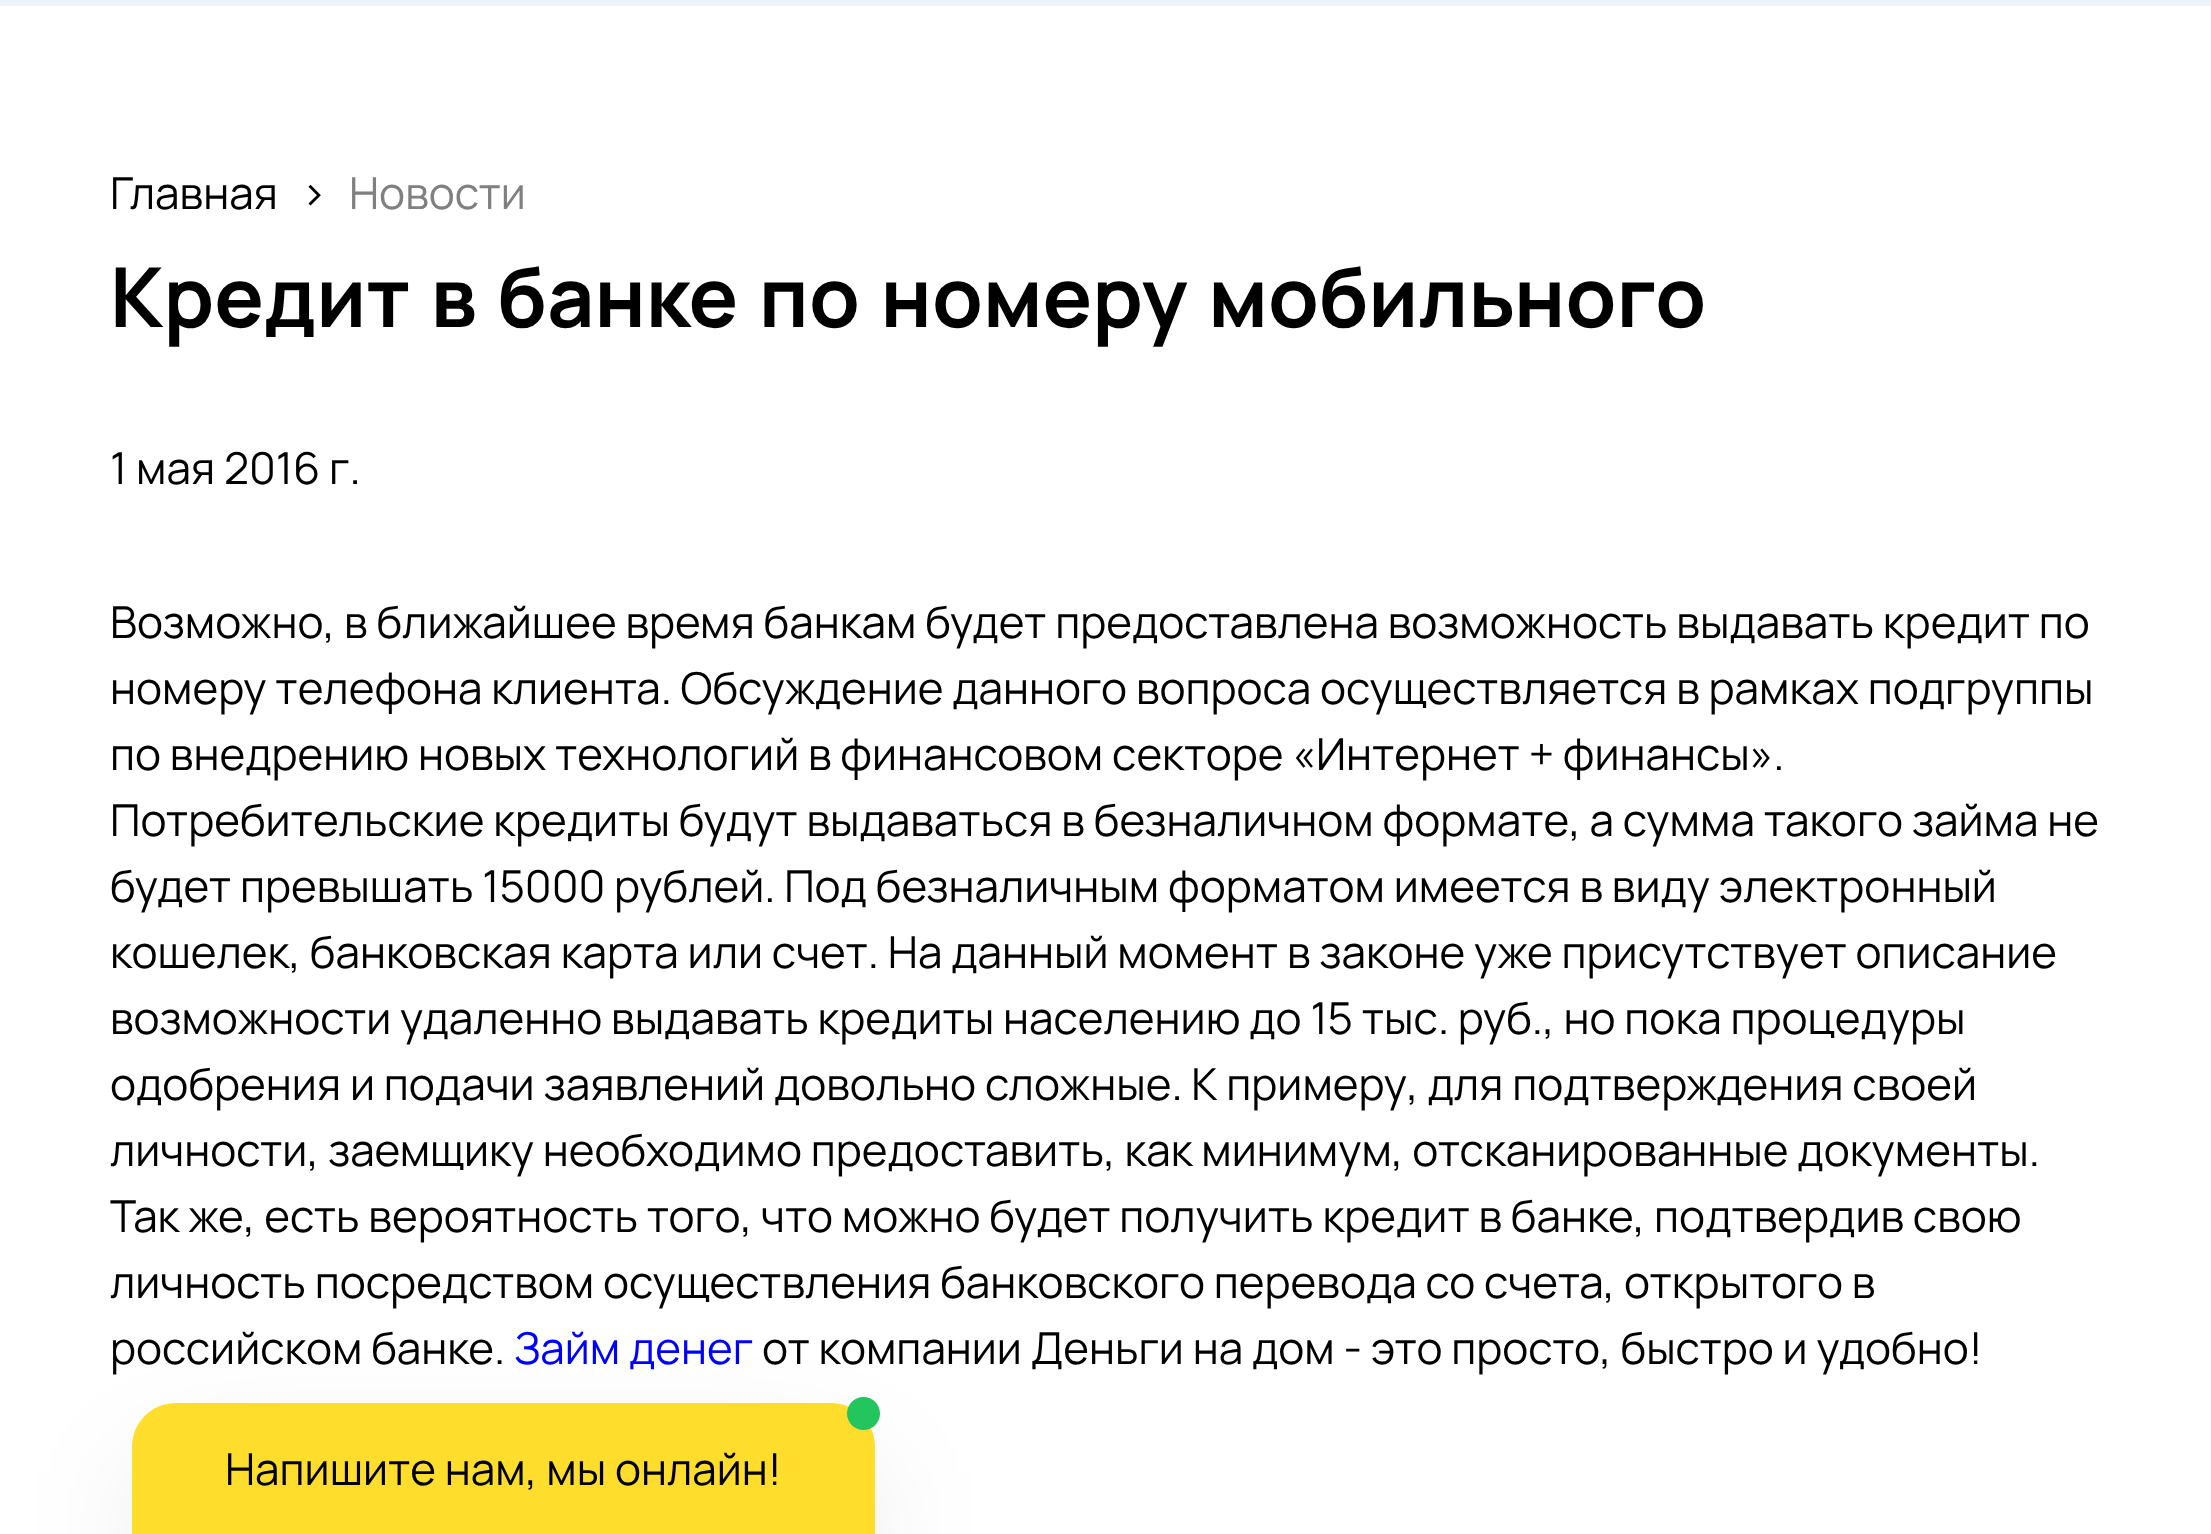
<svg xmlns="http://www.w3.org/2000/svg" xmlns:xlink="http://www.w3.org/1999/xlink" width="2211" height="1534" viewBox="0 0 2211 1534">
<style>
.cls-1{font:44px Manrope;fill:#000000}
.cls-2{font:44px Manrope;fill:#808080}
.cls-3{font:bold 82.5px Manrope;fill:#000000}
.cls-4{font:44px Manrope;fill:#0000ff}
</style>
<rect width="100%" height="100%" fill="#ffffff"/>
<rect fill="#eff3f6" x="0" y="0" width="2211" height="6"/>
<rect fill="#000000" fill-opacity="0.25" filter="blur(69px)" x="165" y="1504" width="677" height="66"/>
<path fill="#ffdd2d" d="M176 1403H831C855.5 1403 875 1422.5 875 1447V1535H132V1447C132 1422.5 151.5 1403 176 1403Z"/>
<circle fill="#22c55e" cx="863.5" cy="1413.5" r="16.5"/>
<text class="cls-1" x="110" y="209">Главная</text>
<text class="cls-1" x="300" y="209">&gt;</text>
<text class="cls-2" x="349" y="209">Новости</text>
<text class="cls-3" x="110" y="327">Кредит в банке по номеру мобильного</text>
<text class="cls-1" x="110" y="484">1 мая 2016 г.</text>
<text class="cls-1"><tspan x="110" y="638">Возможно, в ближайшее время банкам будет предоставлена возможность выдавать кредит по</tspan><tspan x="110" y="704">номеру телефона клиента. Обсуждение данного вопроса осуществляется в рамках подгруппы</tspan><tspan x="110" y="770">по внедрению новых технологий в финансовом секторе «Интернет + финансы».</tspan><tspan x="110" y="836">Потребительские кредиты будут выдаваться в безналичном формате, а сумма такого займа не</tspan><tspan x="110" y="902">будет превышать 15000 рублей. Под безналичным форматом имеется в виду электронный</tspan><tspan x="110" y="968">кошелек, банковская карта или счет. На данный момент в законе уже присутствует описание</tspan><tspan x="110" y="1034">возможности удаленно выдавать кредиты населению до 15 тыс. руб., но пока процедуры</tspan><tspan x="110" y="1100">одобрения и подачи заявлений довольно сложные. К примеру, для подтверждения своей</tspan><tspan x="110" y="1166">личности, заемщику необходимо предоставить, как минимум, отсканированные документы.</tspan><tspan x="110" y="1232">Так же, есть вероятность того, что можно будет получить кредит в банке, подтвердив свою</tspan><tspan x="110" y="1298">личность посредством осуществления банковского перевода со счета, открытого в</tspan><tspan x="110" y="1364">российском банке.</tspan></text>
<text class="cls-4" x="514" y="1364">Займ денег</text>
<text class="cls-1" x="762" y="1364">от компании Деньги на дом - это просто, быстро и удобно!</text>
<text class="cls-1" x="225" y="1485">Напишите нам, мы онлайн!</text>
</svg>
